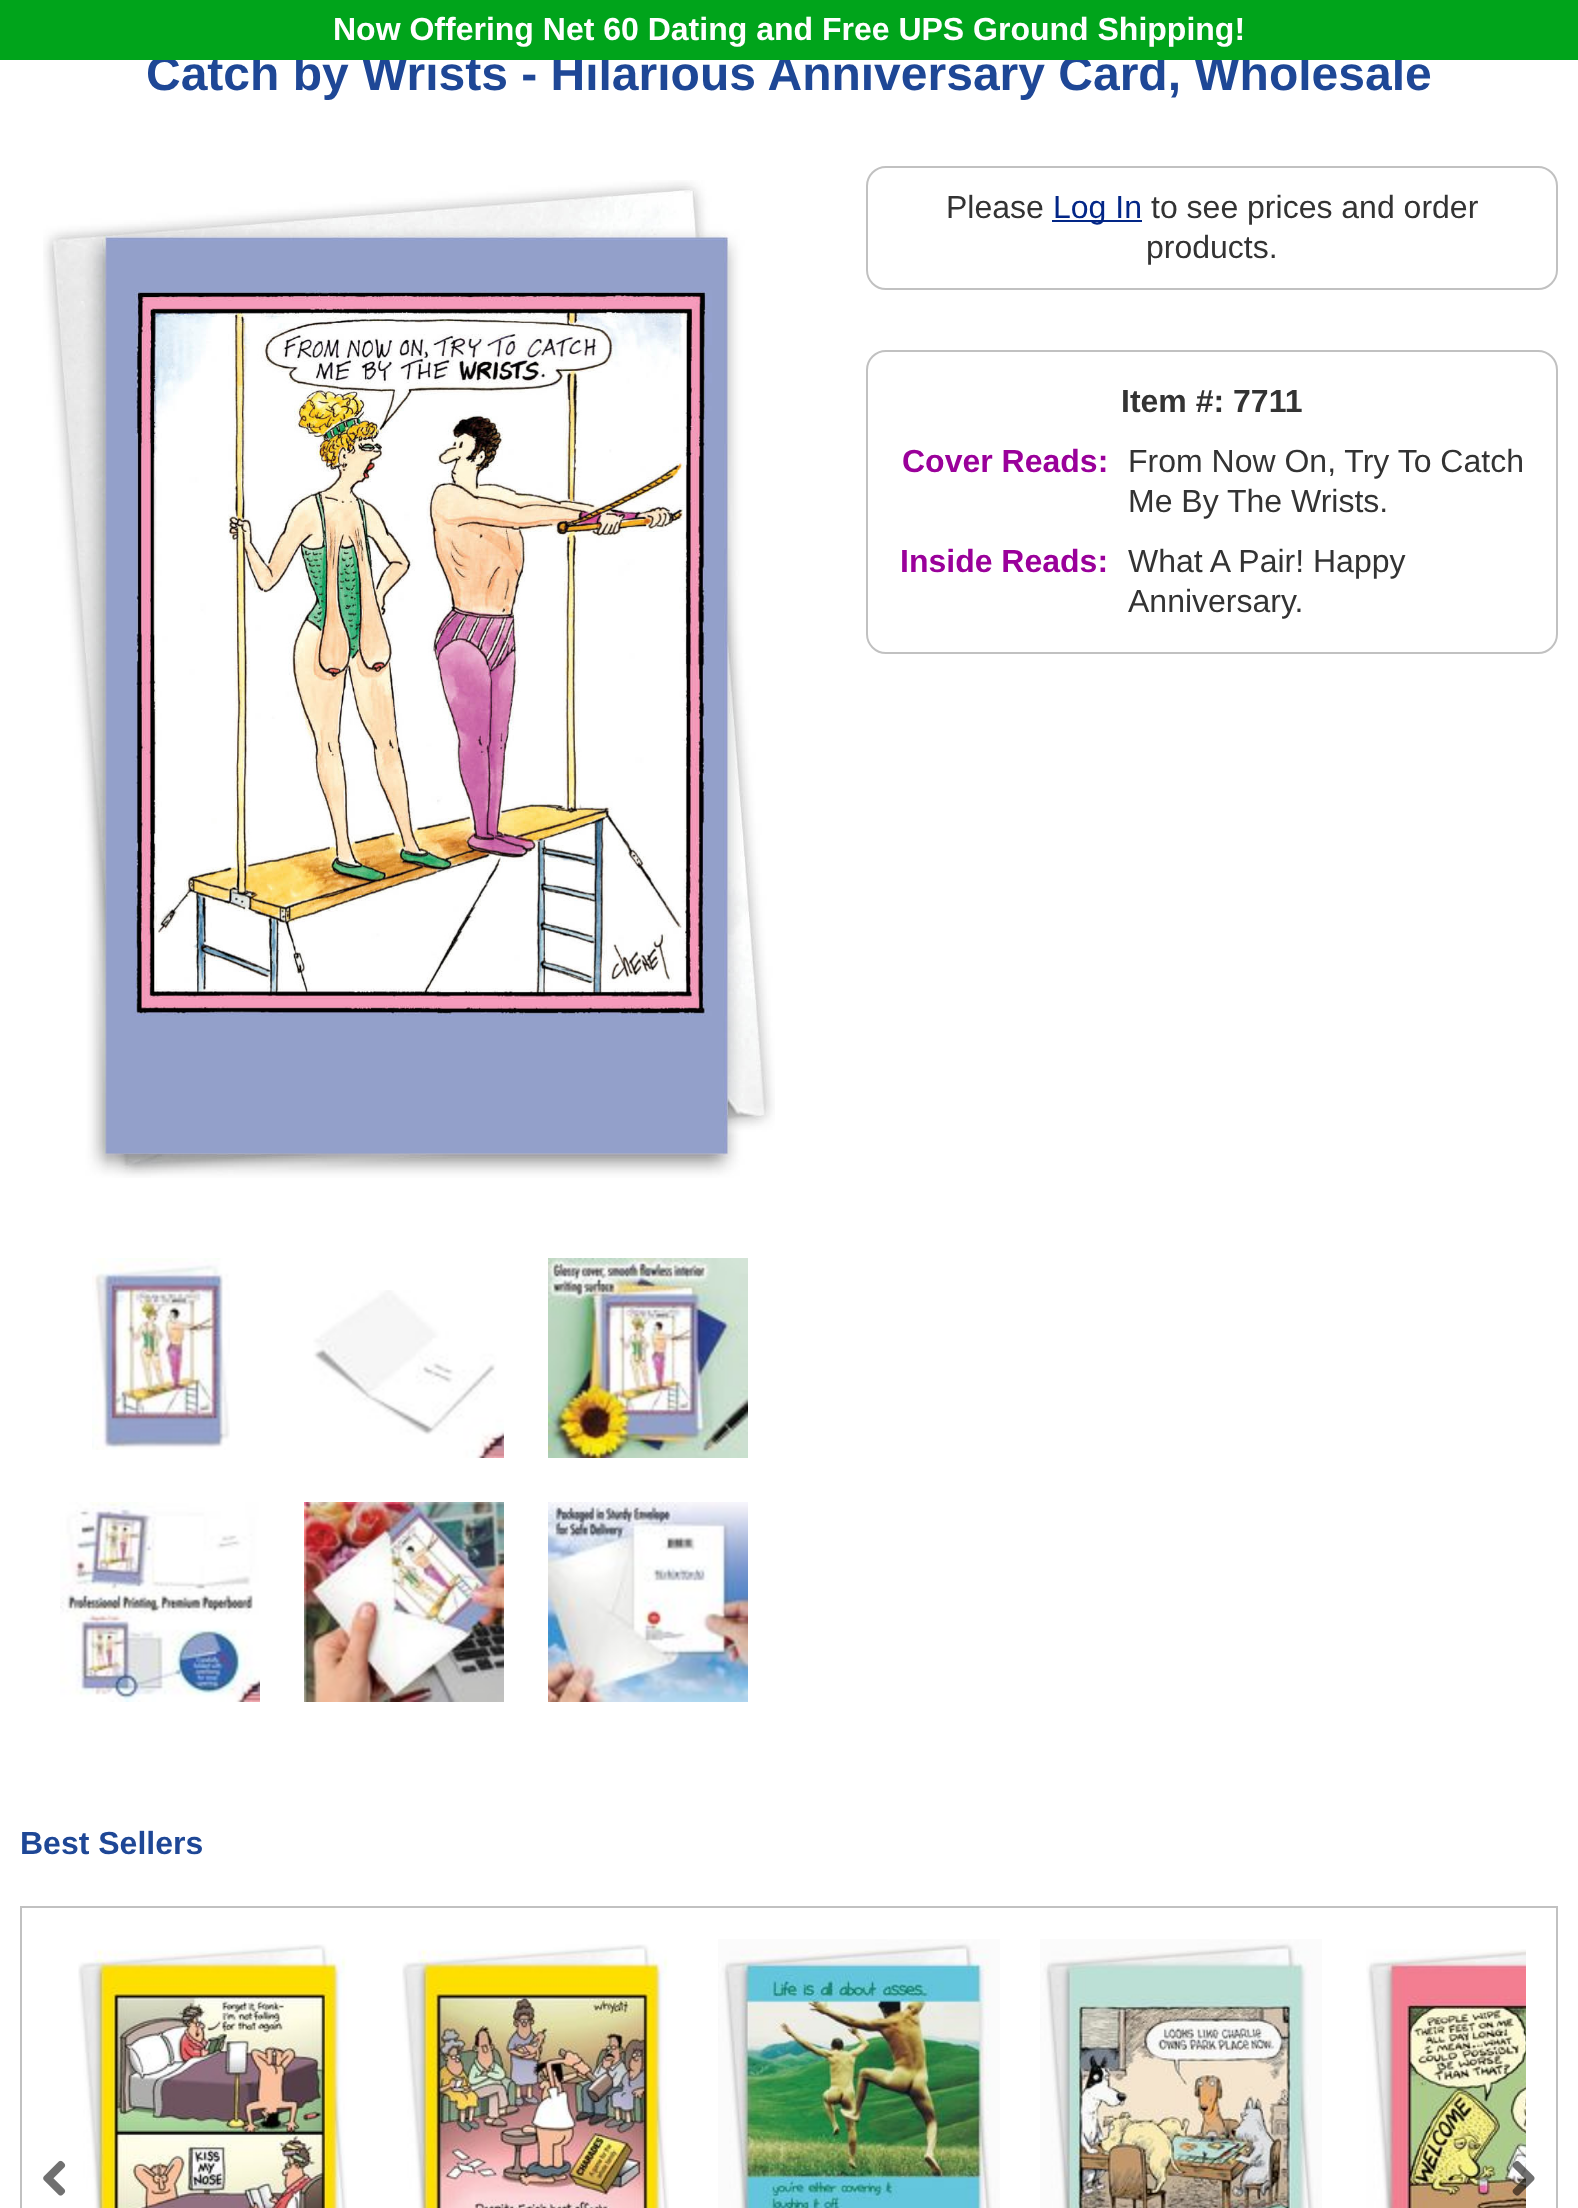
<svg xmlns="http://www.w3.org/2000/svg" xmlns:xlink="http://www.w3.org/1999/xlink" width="1578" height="2208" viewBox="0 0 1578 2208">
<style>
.cls-1{font:bold 48px Liberation Sans;fill:#1e4796}
.cls-2{font:bold 32px Liberation Sans;fill:#ffffff}
.cls-3{font:32px Liberation Sans;fill:#333333}
.cls-4{font:32px Liberation Sans;fill:#022687}
.cls-5{font:bold 32px Liberation Sans;fill:#333333}
.cls-6{font:bold 32px Liberation Sans;fill:#9a009a}
.cls-7{font:bold 32px Liberation Sans;fill:#1e4796}
</style>
<rect width="100%" height="100%" fill="#ffffff"/>
<image xlink:href="image0.png" x="43" y="180" width="732" height="998"/>
<image xlink:href="image1.png" x="92" y="1258" width="138" height="192"/>
<image xlink:href="image2.png" x="313" y="1290" width="191" height="168"/>
<image xlink:href="image3.png" x="548" y="1258" width="200" height="200"/>
<image xlink:href="image4.png" x="60" y="1502" width="200" height="200"/>
<image xlink:href="image5.png" x="304" y="1502" width="200" height="200"/>
<image xlink:href="image6.png" x="548" y="1502" width="200" height="200"/>
<rect fill="none" stroke="#c1c1c1" stroke-width="2" x="867" y="167" width="690" height="122" rx="19"/>
<rect fill="#022687" x="1052" y="220" width="90" height="2"/>
<rect fill="none" stroke="#c1c1c1" stroke-width="2" x="867" y="351" width="690" height="302" rx="19"/>
<rect fill="none" stroke="#c1c1c1" stroke-width="2" x="21" y="1907" width="1536" height="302"/>
<image xlink:href="image7.png" x="78" y="1944" width="269" height="264"/>
<image xlink:href="image8.png" x="402" y="1944" width="267" height="264"/>
<image xlink:href="image9.png" x="718" y="1939" width="282" height="269"/>
<image xlink:href="image10.png" x="1040" y="1939" width="282" height="269"/>
<image xlink:href="image11.png" x="1366" y="1949" width="160" height="259"/>
<image xlink:href="image12.png" x="43" y="2160" width="23" height="36"/>
<image xlink:href="image13.png" x="1512" y="2160" width="23" height="36"/>
<text class="cls-1" x="146" y="90">Catch by Wrists - Hilarious Anniversary Card, Wholesale</text>
<rect fill="#00a41b" x="0" y="0" width="1578" height="60"/>
<text class="cls-2" x="333" y="40">Now Offering Net 60 Dating and Free UPS Ground Shipping!</text>
<text class="cls-3" x="946" y="218">Please</text>
<text class="cls-4" x="1053" y="218">Log In</text>
<text class="cls-3" x="1151" y="218">to see prices and order</text>
<text class="cls-3" x="1146" y="258">products.</text>
<text class="cls-5" x="1121" y="412">Item #: 7711</text>
<text class="cls-6" x="902" y="472">Cover Reads:</text>
<text class="cls-3"><tspan x="1128" y="472">From Now On, Try To Catch</tspan><tspan x="1128" y="512">Me By The Wrists.</tspan></text>
<text class="cls-6" x="900" y="572">Inside Reads:</text>
<text class="cls-3"><tspan x="1128" y="572">What A Pair! Happy</tspan><tspan x="1128" y="612">Anniversary.</tspan></text>
<text class="cls-7" x="20" y="1854">Best Sellers</text>
</svg>
